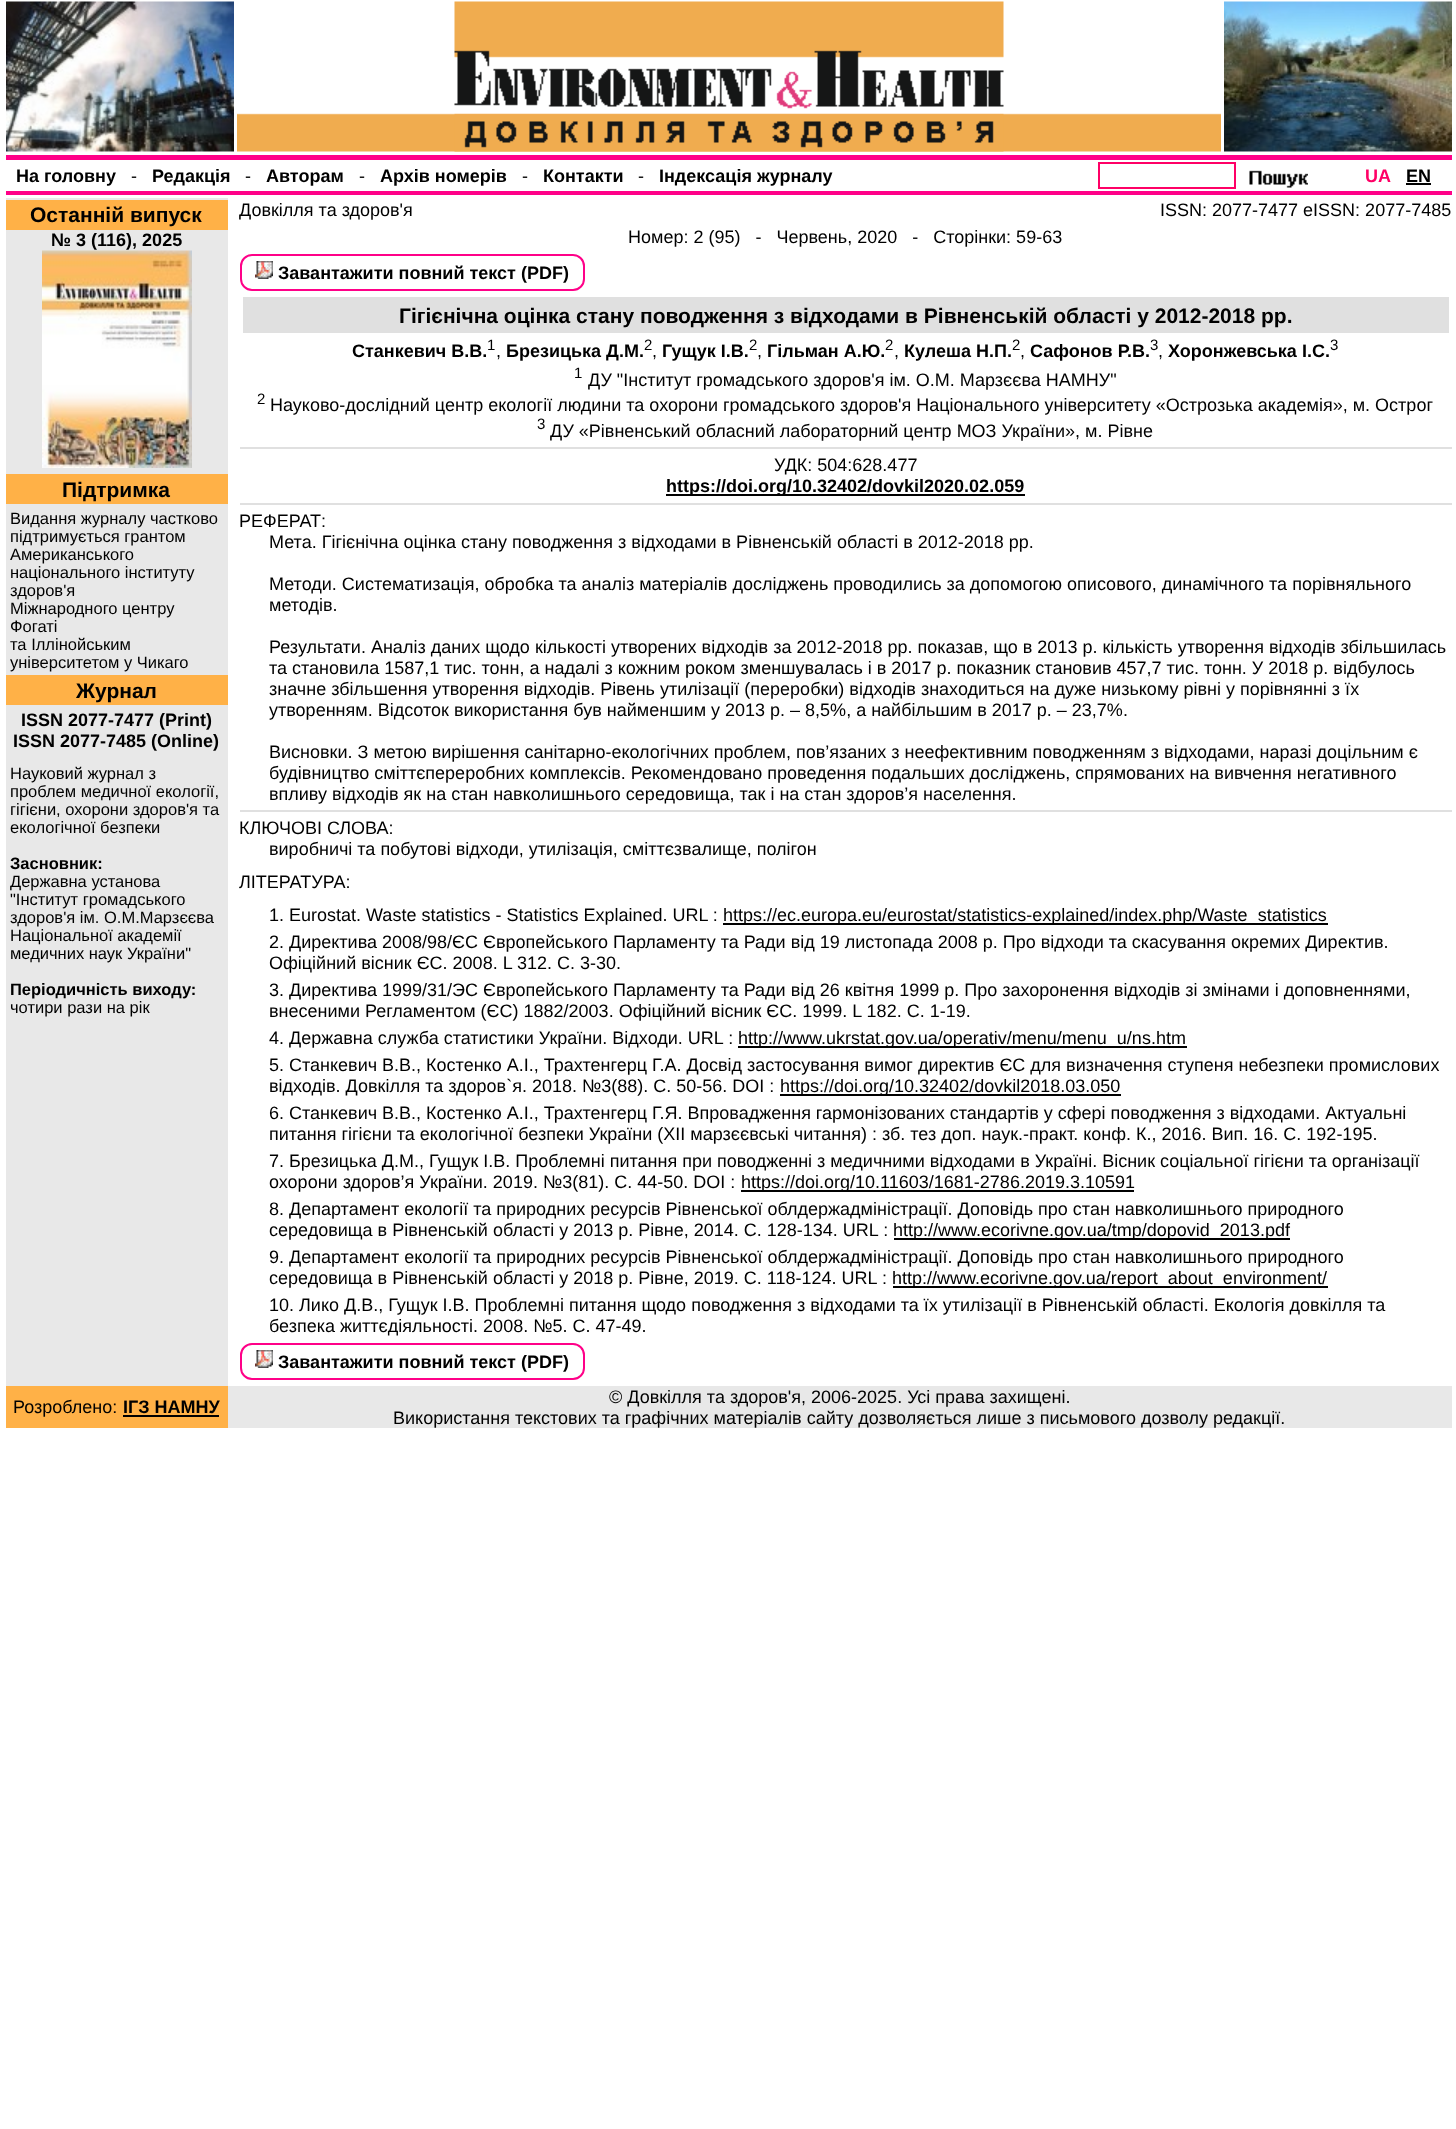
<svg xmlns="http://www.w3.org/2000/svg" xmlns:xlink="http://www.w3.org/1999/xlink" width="1456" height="2129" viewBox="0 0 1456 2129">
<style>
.cls-1{font:bold 18px Liberation Sans;fill:#000000}
.cls-2{font:18px Liberation Sans;fill:#000000}
.cls-3{font:bold 18px Liberation Sans;fill:#ff0066}
.cls-4{font:bold 21px Liberation Sans;fill:#000000}
.cls-5{font:16.5px Liberation Sans;fill:#000000}
.cls-6{font:bold 16.5px Liberation Sans;fill:#000000}
.cls-7{font:15px Liberation Sans;fill:#000000}
</style>
<rect width="100%" height="100%" fill="#ffffff"/>
<image xlink:href="image0.png" x="6" y="1" width="228" height="151"/>
<image xlink:href="image1.png" x="237" y="113" width="984" height="39"/>
<image xlink:href="image2.png" x="454" y="1" width="550" height="151"/>
<image xlink:href="image3.png" x="1224" y="1" width="228" height="151"/>
<rect fill="#ff0088" x="6" y="155" width="1446" height="5"/>
<rect fill="none" stroke="#ff0066" stroke-width="2" x="1099" y="163" width="136" height="25"/>
<image xlink:href="image4.png" x="1249" y="170" width="59" height="18"/>
<rect fill="#000000" x="1406" y="183" width="25" height="2"/>
<rect fill="#ff0088" x="6" y="191" width="1446" height="4"/>
<rect fill="#e8e8e8" x="6" y="198" width="222" height="1188"/>
<rect fill="#ffb147" x="6" y="200" width="222" height="30"/>
<image xlink:href="image5.png" x="42" y="250" width="150" height="218"/>
<rect fill="#ffb147" x="6" y="474" width="222" height="30"/>
<rect fill="#ffb147" x="6" y="675" width="222" height="30"/>
<rect fill="none" stroke="#ff0088" stroke-width="2" x="241" y="255" width="343" height="35" rx="11"/>
<image xlink:href="image6.png" x="255" y="261" width="18" height="18"/>
<rect fill="#e0e0e0" x="243" y="297" width="1206" height="36"/>
<rect fill="#e0e0e0" x="240" y="447" width="1212" height="2"/>
<rect fill="#000000" x="666" y="494" width="359" height="2"/>
<rect fill="#e0e0e0" x="240" y="503" width="1212" height="2"/>
<rect fill="#e0e0e0" x="240" y="810" width="1212" height="2"/>
<rect fill="#000000" x="723" y="923" width="605" height="2"/>
<rect fill="#000000" x="738" y="1046" width="449" height="2"/>
<rect fill="#000000" x="780" y="1094" width="341" height="2"/>
<rect fill="#000000" x="741" y="1190" width="393" height="2"/>
<rect fill="#000000" x="894" y="1238" width="396" height="2"/>
<rect fill="#000000" x="893" y="1286" width="435" height="2"/>
<rect fill="none" stroke="#ff0088" stroke-width="2" x="241" y="1344" width="343" height="35" rx="11"/>
<image xlink:href="image6.png" x="255" y="1350" width="18" height="18"/>
<rect fill="#ffb147" x="6" y="1386" width="222" height="42"/>
<rect fill="#000000" x="123" y="1415" width="96" height="2"/>
<rect fill="#e8e8e8" x="228" y="1386" width="1224" height="42"/>
<text class="cls-1" x="16" y="182">На головну</text>
<text class="cls-2" x="131" y="182">-</text>
<text class="cls-1" x="152" y="182">Редакція</text>
<text class="cls-2" x="245" y="182">-</text>
<text class="cls-1" x="266" y="182">Авторам</text>
<text class="cls-2" x="359" y="182">-</text>
<text class="cls-1" x="380" y="182">Архів номерів</text>
<text class="cls-2" x="522" y="182">-</text>
<text class="cls-1" x="543" y="182">Контакти</text>
<text class="cls-2" x="638" y="182">-</text>
<text class="cls-1" x="659" y="182">Індексація журналу</text>
<text class="cls-3" x="1365" y="182">UA</text>
<text class="cls-1" x="1406" y="182">EN</text>
<text class="cls-4" x="30" y="222">Останній випуск</text>
<text class="cls-1" x="51" y="246">№ 3 (116), 2025</text>
<text class="cls-4" x="62" y="497">Підтримка</text>
<text class="cls-5"><tspan x="10" y="524">Видання журналу частково</tspan><tspan x="10" y="542">підтримується грантом</tspan><tspan x="10" y="560">Американського</tspan><tspan x="10" y="578">національного інституту</tspan><tspan x="10" y="596">здоров'я</tspan><tspan x="10" y="614">Міжнародного центру</tspan><tspan x="10" y="632">Фогаті</tspan><tspan x="10" y="650">та Іллінойським</tspan><tspan x="10" y="668">університетом у Чикаго</tspan></text>
<text class="cls-4" x="76" y="698">Журнал</text>
<text class="cls-1" x="21" y="726">ISSN 2077-7477 (Print)</text>
<text class="cls-1" x="13" y="747">ISSN 2077-7485 (Online)</text>
<text class="cls-5"><tspan x="10" y="779">Науковий журнал з</tspan><tspan x="10" y="797">проблем медичної екології,</tspan><tspan x="10" y="815">гігієни, охорони здоров'я та</tspan><tspan x="10" y="833">екологічної безпеки</tspan></text>
<text class="cls-6" x="10" y="869">Засновник:</text>
<text class="cls-5"><tspan x="10" y="887">Державна установа</tspan><tspan x="10" y="905">"Інститут громадського</tspan><tspan x="10" y="923">здоров'я ім. О.М.Марзєєва</tspan><tspan x="10" y="941">Національної академії</tspan><tspan x="10" y="959">медичних наук України"</tspan></text>
<text class="cls-6" x="10" y="995">Періодичність виходу:</text>
<text class="cls-5" x="10" y="1013">чотири рази на рік</text>
<text class="cls-2" x="239" y="216">Довкілля та здоров'я</text>
<text class="cls-2" x="1160" y="216">ISSN: 2077-7477 eISSN: 2077-7485</text>
<text class="cls-2" xml:space="preserve" x="628" y="243">Номер: 2 (95)   -   Червень, 2020   -   Сторінки: 59-63</text>
<text class="cls-1" x="278" y="279">Завантажити повний текст (PDF)</text>
<text class="cls-4" x="399" y="323">Гігієнічна оцінка стану поводження з відходами в Рівненській області у 2012-2018 рр.</text>
<text class="cls-1" x="352" y="357">Станкевич В.В.</text>
<text class="cls-7" x="487" y="350">1</text>
<text class="cls-2" x="496" y="357">,</text>
<text class="cls-1" x="506" y="357">Брезицька Д.М.</text>
<text class="cls-7" x="644" y="350">2</text>
<text class="cls-2" x="652" y="357">,</text>
<text class="cls-1" x="662" y="357">Гущук І.В.</text>
<text class="cls-7" x="749" y="350">2</text>
<text class="cls-2" x="757" y="357">,</text>
<text class="cls-1" x="767" y="357">Гільман А.Ю.</text>
<text class="cls-7" x="885" y="350">2</text>
<text class="cls-2" x="894" y="357">,</text>
<text class="cls-1" x="904" y="357">Кулеша Н.П.</text>
<text class="cls-7" x="1012" y="350">2</text>
<text class="cls-2" x="1020" y="357">,</text>
<text class="cls-1" x="1030" y="357">Сафонов Р.В.</text>
<text class="cls-7" x="1150" y="350">3</text>
<text class="cls-2" x="1158" y="357">,</text>
<text class="cls-1" x="1168" y="357">Хоронжевська І.С.</text>
<text class="cls-7" x="1330" y="350">3</text>
<text class="cls-7" x="574" y="378">1</text>
<text class="cls-2" x="588" y="386">ДУ "Інститут громадського здоров'я ім. О.М. Марзєєва НАМНУ"</text>
<text class="cls-7" x="257" y="404">2</text>
<text class="cls-2" x="270" y="411">Науково-дослідний центр екології людини та охорони громадського здоров'я Національного університету «Острозька академія», м. Острог</text>
<text class="cls-7" x="537" y="429">3</text>
<text class="cls-2" x="550" y="437">ДУ «Рівненський обласний лабораторний центр МОЗ України», м. Рівне</text>
<text class="cls-2" x="774" y="471">УДК: 504:628.477</text>
<text class="cls-1" x="666" y="492">https://doi.org/10.32402/dovkil2020.02.059</text>
<text class="cls-2" x="239" y="527">РЕФЕРАТ:</text>
<text class="cls-2" x="269" y="548">Мета. Гігієнічна оцінка стану поводження з відходами в Рівненській області в 2012-2018 рр.</text>
<text class="cls-2"><tspan x="269" y="590">Методи. Систематизація, обробка та аналіз матеріалів досліджень проводились за допомогою описового, динамічного та порівняльного</tspan><tspan x="269" y="611">методів.</tspan></text>
<text class="cls-2"><tspan x="269" y="653">Результати. Аналіз даних щодо кількості утворених відходів за 2012-2018 рр. показав, що в 2013 р. кількість утворення відходів збільшилась</tspan><tspan x="269" y="674">та становила 1587,1 тис. тонн, а надалі з кожним роком зменшувалась і в 2017 р. показник становив 457,7 тис. тонн. У 2018 р. відбулось</tspan><tspan x="269" y="695">значне збільшення утворення відходів. Рівень утилізації (переробки) відходів знаходиться на дуже низькому рівні у порівнянні з їх</tspan><tspan x="269" y="716">утворенням. Відсоток використання був найменшим у 2013 р. – 8,5%, а найбільшим в 2017 р. – 23,7%.</tspan></text>
<text class="cls-2"><tspan x="269" y="758">Висновки. З метою вирішення санітарно-екологічних проблем, пов’язаних з неефективним поводженням з відходами, наразі доцільним є</tspan><tspan x="269" y="779">будівництво сміттєпереробних комплексів. Рекомендовано проведення подальших досліджень, спрямованих на вивчення негативного</tspan><tspan x="269" y="800">впливу відходів як на стан навколишнього середовища, так і на стан здоров’я населення.</tspan></text>
<text class="cls-2" x="239" y="834">КЛЮЧОВІ СЛОВА:</text>
<text class="cls-2" x="269" y="855">виробничі та побутові відходи, утилізація, сміттєзвалище, полігон</text>
<text class="cls-2" x="239" y="888">ЛІТЕРАТУРА:</text>
<text class="cls-2" x="269" y="921">1. Eurostat. Waste statistics - Statistics Explained. URL :</text>
<text class="cls-2" x="723" y="921">https://ec.europa.eu/eurostat/statistics-explained/index.php/Waste_statistics</text>
<text class="cls-2"><tspan x="269" y="948">2. Директива 2008/98/ЄС Європейського Парламенту та Ради від 19 листопада 2008 р. Про відходи та скасування окремих Директив.</tspan><tspan x="269" y="969">Офіційний вісник ЄС. 2008. L 312. C. 3-30.</tspan><tspan x="269" y="996">3. Директива 1999/31/ЭС Європейського Парламенту та Ради від 26 квітня 1999 р. Про захоронення відходів зі змінами і доповненнями,</tspan><tspan x="269" y="1017">внесеними Регламентом (ЄС) 1882/2003. Офіційний вісник ЄС. 1999. L 182. C. 1-19.</tspan><tspan x="269" y="1044">4. Державна служба статистики України. Відходи. URL :</tspan></text>
<text class="cls-2" x="738" y="1044">http://www.ukrstat.gov.ua/operativ/menu/menu_u/ns.htm</text>
<text class="cls-2"><tspan x="269" y="1071">5. Станкевич В.В., Костенко А.І., Трахтенгерц Г.А. Досвід застосування вимог директив ЄС для визначення ступеня небезпеки промислових</tspan><tspan x="269" y="1092">відходів. Довкілля та здоров`я. 2018. №3(88). С. 50-56. DOI :</tspan></text>
<text class="cls-2" x="780" y="1092">https://doi.org/10.32402/dovkil2018.03.050</text>
<text class="cls-2"><tspan x="269" y="1119">6. Станкевич В.В., Костенко А.І., Трахтенгерц Г.Я. Впровадження гармонізованих стандартів у сфері поводження з відходами. Актуальні</tspan><tspan x="269" y="1140">питання гігієни та екологічної безпеки України (ХІІ марзєєвські читання) : зб. тез доп. наук.-практ. конф. К., 2016. Вип. 16. С. 192-195.</tspan><tspan x="269" y="1167">7. Брезицька Д.М., Гущук І.В. Проблемні питання при поводженні з медичними відходами в Україні. Вісник соціальної гігієни та організації</tspan><tspan x="269" y="1188">охорони здоров’я України. 2019. №3(81). С. 44-50. DOI :</tspan></text>
<text class="cls-2" x="741" y="1188">https://doi.org/10.11603/1681-2786.2019.3.10591</text>
<text class="cls-2"><tspan x="269" y="1215">8. Департамент екології та природних ресурсів Рівненської облдержадміністрації. Доповідь про стан навколишнього природного</tspan><tspan x="269" y="1236">середовища в Рівненській області у 2013 р. Рівне, 2014. С. 128-134. URL :</tspan></text>
<text class="cls-2" x="893" y="1236">http://www.ecorivne.gov.ua/tmp/dopovid_2013.pdf</text>
<text class="cls-2"><tspan x="269" y="1263">9. Департамент екології та природних ресурсів Рівненської облдержадміністрації. Доповідь про стан навколишнього природного</tspan><tspan x="269" y="1284">середовища в Рівненській області у 2018 р. Рівне, 2019. С. 118-124. URL :</tspan></text>
<text class="cls-2" x="892" y="1284">http://www.ecorivne.gov.ua/report_about_environment/</text>
<text class="cls-2"><tspan x="269" y="1311">10. Лико Д.В., Гущук І.В. Проблемні питання щодо поводження з відходами та їх утилізації в Рівненській області. Екологія довкілля та</tspan><tspan x="269" y="1332">безпека життєдіяльності. 2008. №5. С. 47-49.</tspan></text>
<text class="cls-1" x="278" y="1368">Завантажити повний текст (PDF)</text>
<text class="cls-2" x="13" y="1413">Розроблено:</text>
<text class="cls-1" x="123" y="1413">ІГЗ НАМНУ</text>
<text class="cls-2" x="609" y="1403">© Довкілля та здоров'я, 2006-2025. Усі права захищені.</text>
<text class="cls-2" x="393" y="1424">Використання текстових та графічних матеріалів сайту дозволяється лише з письмового дозволу редакції.</text>
</svg>
